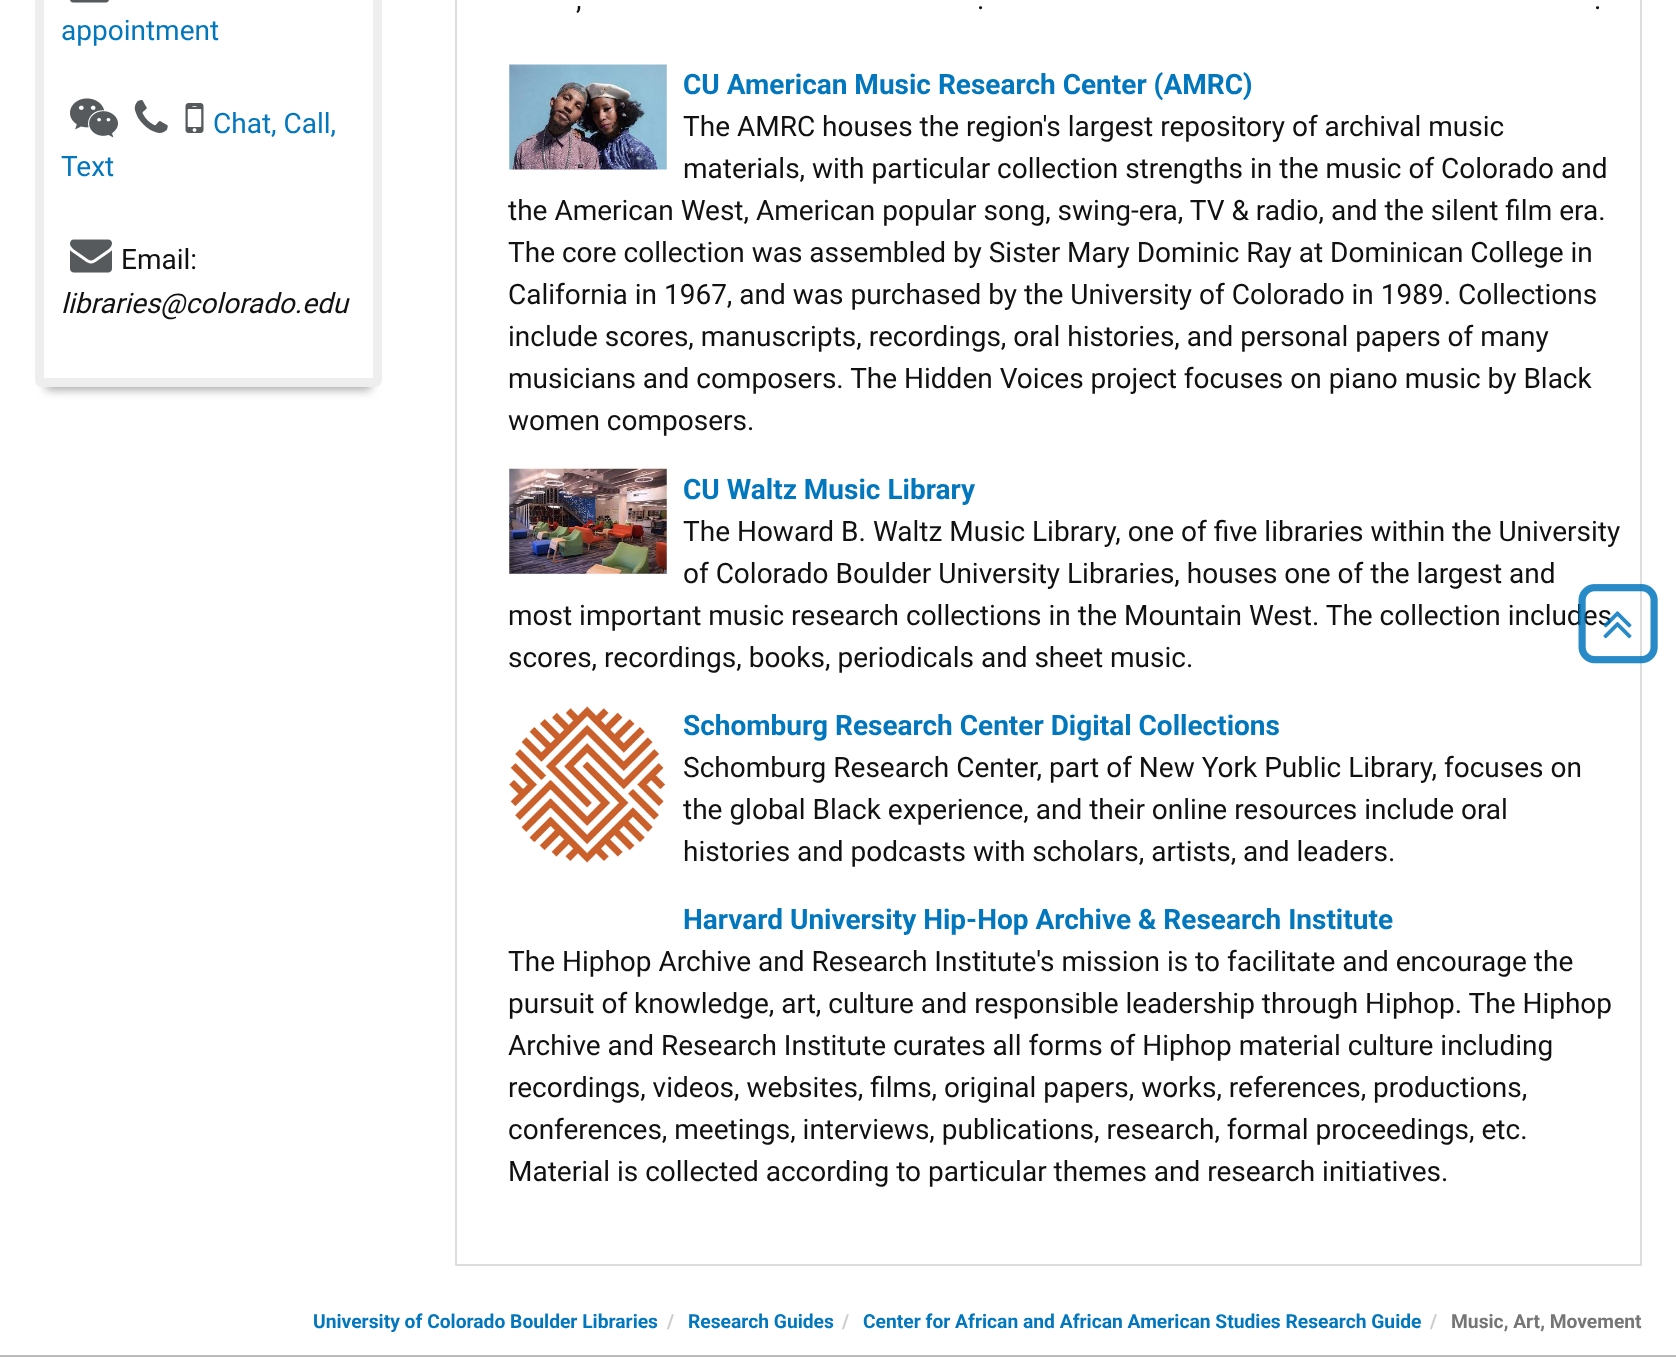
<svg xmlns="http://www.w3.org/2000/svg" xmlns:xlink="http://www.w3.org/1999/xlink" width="1676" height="1357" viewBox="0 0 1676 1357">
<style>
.cls-1{font:28px Roboto;fill:#0277bd}
.cls-2{font:28px Roboto;fill:#111111}
.cls-3{font:italic 28px Roboto;fill:#111111}
.cls-4{font:bold 28px Roboto;fill:#0277bd}
.cls-5{font:bold 19.25px Roboto;fill:#0277bd}
.cls-6{font:bold 19.25px Roboto;fill:#cccccc}
.cls-7{font:bold 19.25px Roboto;fill:#767676}
</style>
<rect width="100%" height="100%" fill="#ffffff"/>
<rect fill="#aaaaaa" filter="blur(5px)" x="46" y="-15" width="325" height="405"/>
<rect fill="#ffffff" stroke="#eeeeee" stroke-width="9" x="39.5" y="-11.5" width="338" height="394" rx="2.5"/>
<image xlink:href="image0.png" x="70" y="0" width="39" height="3"/>
<image xlink:href="image1.png" x="70" y="98" width="48" height="40"/>
<image xlink:href="image2.png" x="134" y="100" width="34" height="33"/>
<image xlink:href="image3.png" x="185" y="103" width="19" height="30"/>
<image xlink:href="image4.png" x="70" y="239" width="42" height="34"/>
<rect fill="#dddddd" x="1640" y="0" width="2" height="1265"/>
<rect fill="#dddddd" x="455" y="1264" width="1187" height="2"/>
<rect fill="#dddddd" x="455" y="0" width="2" height="1265"/>
<image xlink:href="image5.png" x="509" y="64" width="158" height="106"/>
<image xlink:href="image6.png" x="509" y="468" width="158" height="106"/>
<image xlink:href="image7.png" x="509" y="706" width="157" height="157"/>
<rect fill="#bbbbbb" x="0" y="1355" width="1676" height="2"/>
<text class="cls-1" x="61" y="40">appointment</text>
<text class="cls-1" x="213" y="133">Chat, Call,</text>
<text class="cls-1" x="61" y="176">Text</text>
<text class="cls-2" x="121" y="269">Email:</text>
<text class="cls-3" x="61" y="313">libraries@colorado.edu</text>
<text class="cls-2" x="576" y="9">,</text>
<text class="cls-2" x="977" y="9">.</text>
<text class="cls-2" x="1594" y="9">.</text>
<text class="cls-4" x="683" y="94">CU American Music Research Center (AMRC)</text>
<text class="cls-2"><tspan x="683" y="136">The AMRC houses the region's largest repository of archival music</tspan><tspan x="683" y="178">materials, with particular collection strengths in the music of Colorado and</tspan></text>
<text class="cls-2"><tspan x="508" y="220">the American West, American popular song, swing-era, TV &amp; radio, and the silent film era.</tspan><tspan x="508" y="262">The core collection was assembled by Sister Mary Dominic Ray at Dominican College in</tspan><tspan x="508" y="304">California in 1967, and was purchased by the University of Colorado in 1989. Collections</tspan><tspan x="508" y="346">include scores, manuscripts, recordings, oral histories, and personal papers of many</tspan><tspan x="508" y="388">musicians and composers. The Hidden Voices project focuses on piano music by Black</tspan><tspan x="508" y="430">women composers.</tspan></text>
<text class="cls-4" x="683" y="499">CU Waltz Music Library</text>
<text class="cls-2"><tspan x="683" y="541">The Howard B. Waltz Music Library, one of five libraries within the University</tspan><tspan x="683" y="583">of Colorado Boulder University Libraries, houses one of the largest and</tspan></text>
<text class="cls-2"><tspan x="508" y="625">most important music research collections in the Mountain West. The collection includes</tspan><tspan x="508" y="667">scores, recordings, books, periodicals and sheet music.</tspan></text>
<text class="cls-4" x="683" y="735">Schomburg Research Center Digital Collections</text>
<text class="cls-2"><tspan x="683" y="777">Schomburg Research Center, part of New York Public Library, focuses on</tspan><tspan x="683" y="819">the global Black experience, and their online resources include oral</tspan><tspan x="683" y="861">histories and podcasts with scholars, artists, and leaders.</tspan></text>
<text class="cls-4" x="683" y="929">Harvard University Hip-Hop Archive &amp; Research Institute</text>
<text class="cls-2"><tspan x="508" y="971">The Hiphop Archive and Research Institute's mission is to facilitate and encourage the</tspan><tspan x="508" y="1013">pursuit of knowledge, art, culture and responsible leadership through Hiphop. The Hiphop</tspan><tspan x="508" y="1055">Archive and Research Institute curates all forms of Hiphop material culture including</tspan><tspan x="508" y="1097">recordings, videos, websites, films, original papers, works, references, productions,</tspan><tspan x="508" y="1139">conferences, meetings, interviews, publications, research, formal proceedings, etc.</tspan><tspan x="508" y="1181">Material is collected according to particular themes and research initiatives.</tspan></text>
<text class="cls-5" x="313" y="1328">University of Colorado Boulder Libraries</text>
<text class="cls-6" x="667" y="1328">/</text>
<text class="cls-5" x="688" y="1328">Research Guides</text>
<text class="cls-6" x="842" y="1328">/</text>
<text class="cls-5" x="863" y="1328">Center for African and African American Studies Research Guide</text>
<text class="cls-6" x="1430" y="1328">/</text>
<text class="cls-7" x="1451" y="1328">Music, Art, Movement</text>
<image xlink:href="image8.png" x="1578" y="584" width="80" height="80"/>
<image xlink:href="image9.png" x="1603" y="611" width="29" height="28"/>
</svg>
